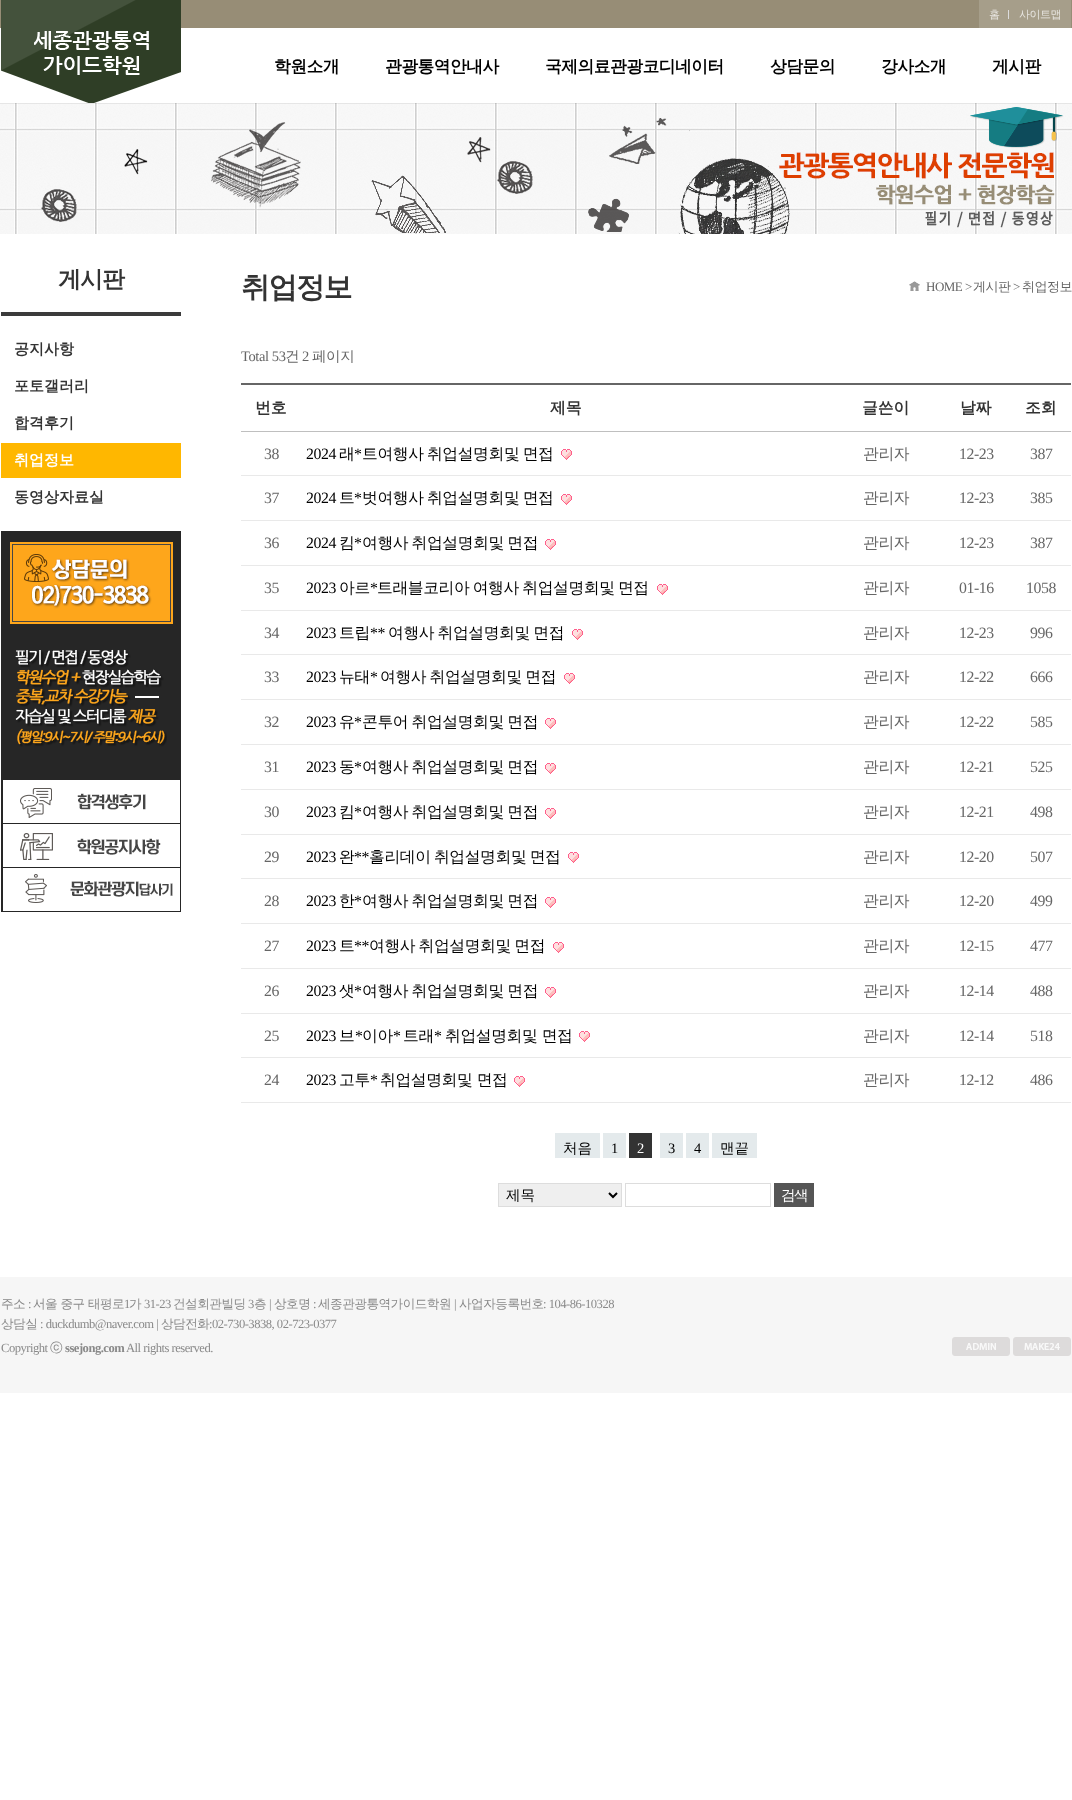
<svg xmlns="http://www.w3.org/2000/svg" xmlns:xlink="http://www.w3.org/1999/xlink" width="1072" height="1800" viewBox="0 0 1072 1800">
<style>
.cls-1{font:500 11px WenQuanYi Zen Hei;letter-spacing:-0.5px;fill:#e7e5e0}
.cls-2{font:bold 16.75px WenQuanYi Zen Hei;letter-spacing:-0.5px;fill:#000000}
.cls-3{font:bold 23px WenQuanYi Zen Hei;letter-spacing:-1px;fill:#333333}
.cls-4{font:bold 15px WenQuanYi Zen Hei;fill:#333333}
.cls-5{font:bold 15px WenQuanYi Zen Hei;fill:#ffffff}
.cls-6{font:bold 29px WenQuanYi Zen Hei;letter-spacing:-1.5px;fill:#333333}
.cls-7{font:13px Liberation Serif;letter-spacing:-0.5px;fill:#666666}
.cls-8{font:500 13px WenQuanYi Zen Hei;letter-spacing:-0.5px;fill:#666666}
.cls-9{font:14.5px Liberation Serif;letter-spacing:-0.4px;fill:#666666}
.cls-10{font:500 14.5px WenQuanYi Zen Hei;letter-spacing:-0.4px;fill:#666666}
.cls-11{font:bold 15.8px WenQuanYi Zen Hei;fill:#333333}
.cls-12{font:15.8px Liberation Serif;letter-spacing:-0.4px;fill:#666666}
.cls-13{font:15.8px Liberation Serif;letter-spacing:-0.4px;fill:#000000}
.cls-14{font:500 15.8px WenQuanYi Zen Hei;letter-spacing:-0.4px;fill:#000000}
.cls-15{font:500 15.8px WenQuanYi Zen Hei;letter-spacing:-0.4px;fill:#666666}
.cls-16{font:500 14.5px WenQuanYi Zen Hei;fill:#000000}
.cls-17{font:14.5px Liberation Serif;fill:#000000}
.cls-18{font:14.5px Liberation Serif;fill:#ffffff}
.cls-19{font:500 14.5px WenQuanYi Zen Hei;letter-spacing:-1.5px;fill:#ffffff}
.cls-20{font:500 12.6px WenQuanYi Zen Hei;letter-spacing:-0.5px;fill:#898989}
.cls-21{font:12.6px Liberation Serif;letter-spacing:-0.5px;fill:#898989}
.cls-22{font:bold 12.6px Liberation Serif;letter-spacing:-0.5px;fill:#898989}
</style>
<rect width="100%" height="100%" fill="#ffffff"/>
<rect fill="#978d76" x="0" y="0" width="1072" height="28"/>
<rect fill="#a69e8a" x="979" y="0" width="92" height="28"/>
<rect fill="#dcdcdd" x="1008" y="10" width="1" height="9"/>
<image xlink:href="image0.png" x="1" y="0" width="180" height="103"/>
<image xlink:href="image1.png" x="34" y="31" width="115" height="44"/>
<image xlink:href="image2.png" x="0" y="103" width="1072" height="131"/>
<rect fill="#3b3b3b" x="1" y="312" width="180" height="4"/>
<rect fill="#ffb700" x="1" y="443" width="180" height="35"/>
<rect fill="#262626" x="1" y="531" width="180" height="381"/>
<image xlink:href="image3.png" x="10" y="542" width="163" height="82"/>
<image xlink:href="image4.png" x="15" y="649" width="152" height="98"/>
<image xlink:href="image5.png" x="3" y="780" width="177" height="43"/>
<image xlink:href="image6.png" x="3" y="824" width="177" height="43"/>
<image xlink:href="image7.png" x="3" y="868" width="177" height="43"/>
<image xlink:href="image8.png" x="909" y="281" width="11" height="10"/>
<rect fill="#666666" x="241" y="383" width="830" height="2"/>
<rect fill="#bfbfbf" x="241" y="431" width="830" height="1"/>
<image xlink:href="image9.png" x="561" y="449" width="11" height="11"/>
<image xlink:href="image9.png" x="561" y="494" width="11" height="11"/>
<rect fill="#e9e9e9" x="241" y="475" width="830" height="1"/>
<image xlink:href="image9.png" x="545" y="539" width="11" height="11"/>
<rect fill="#e9e9e9" x="241" y="520" width="830" height="1"/>
<image xlink:href="image9.png" x="657" y="584" width="11" height="11"/>
<rect fill="#e9e9e9" x="241" y="565" width="830" height="1"/>
<image xlink:href="image9.png" x="572" y="629" width="11" height="11"/>
<rect fill="#e9e9e9" x="241" y="610" width="830" height="1"/>
<image xlink:href="image9.png" x="564" y="673" width="11" height="11"/>
<rect fill="#e9e9e9" x="241" y="654" width="830" height="1"/>
<image xlink:href="image9.png" x="545" y="718" width="11" height="11"/>
<rect fill="#e9e9e9" x="241" y="699" width="830" height="1"/>
<image xlink:href="image9.png" x="545" y="763" width="11" height="11"/>
<rect fill="#e9e9e9" x="241" y="744" width="830" height="1"/>
<image xlink:href="image9.png" x="545" y="808" width="11" height="11"/>
<rect fill="#e9e9e9" x="241" y="789" width="830" height="1"/>
<image xlink:href="image9.png" x="568" y="852" width="11" height="11"/>
<rect fill="#e9e9e9" x="241" y="834" width="830" height="1"/>
<image xlink:href="image9.png" x="545" y="897" width="11" height="11"/>
<rect fill="#e9e9e9" x="241" y="878" width="830" height="1"/>
<image xlink:href="image9.png" x="553" y="942" width="11" height="11"/>
<rect fill="#e9e9e9" x="241" y="923" width="830" height="1"/>
<image xlink:href="image9.png" x="545" y="987" width="11" height="11"/>
<rect fill="#e9e9e9" x="241" y="968" width="830" height="1"/>
<image xlink:href="image9.png" x="579" y="1031" width="11" height="11"/>
<rect fill="#e9e9e9" x="241" y="1013" width="830" height="1"/>
<image xlink:href="image9.png" x="514" y="1076" width="11" height="11"/>
<rect fill="#e9e9e9" x="241" y="1057" width="830" height="1"/>
<rect fill="#e9e9e9" x="241" y="1102" width="830" height="1"/>
<rect fill="#e4eaec" x="555" y="1133" width="45" height="25"/>
<rect fill="#e4eaec" x="603" y="1133" width="23" height="25"/>
<rect fill="#333333" x="629" y="1133" width="23" height="25"/>
<rect fill="#e4eaec" x="660" y="1133" width="23" height="25"/>
<rect fill="#e4eaec" x="686" y="1133" width="23" height="25"/>
<rect fill="#e4eaec" x="712" y="1133" width="45" height="25"/>
<rect fill="#efefef" stroke="#dddddd" x="498.5" y="1183.5" width="123" height="23"/>
<path fill="none" stroke="#000000" stroke-width="2" d="M609 1193L613 1197L617 1193"/>
<rect fill="none" stroke="#dddddd" x="625.5" y="1183.5" width="145" height="23"/>
<rect fill="#555555" x="774" y="1183" width="40" height="24"/>
<rect fill="#f6f6f6" x="0" y="1277" width="1072" height="116"/>
<image xlink:href="image10.png" x="952" y="1337" width="58" height="19"/>
<image xlink:href="image11.png" x="1013" y="1337" width="58" height="19"/>
<text class="cls-1" x="989" y="18">홈</text>
<text class="cls-1" x="1019" y="18">사이트맵</text>
<text class="cls-2" x="274" y="72">학원소개</text>
<text class="cls-2" x="385" y="72">관광통역안내사</text>
<text class="cls-2" x="545" y="72">국제의료관광코디네이터</text>
<text class="cls-2" x="770" y="72">상담문의</text>
<text class="cls-2" x="881" y="72">강사소개</text>
<text class="cls-2" x="992" y="72">게시판</text>
<text class="cls-3" x="58" y="287">게시판</text>
<text class="cls-4" x="14" y="354">공지사항</text>
<text class="cls-4" x="14" y="391">포토갤러리</text>
<text class="cls-4" x="14" y="428">합격후기</text>
<text class="cls-5" x="14" y="465">취업정보</text>
<text class="cls-4" x="14" y="502">동영상자료실</text>
<text class="cls-6" x="241" y="297">취업정보</text>
<text class="cls-7" x="926" y="291">HOME &gt;</text>
<text class="cls-8" x="973" y="291">게시판</text>
<text class="cls-7" x="1013" y="291">&gt;</text>
<text class="cls-8" x="1022" y="291">취업정보</text>
<text class="cls-9" x="241" y="361">Total 53</text>
<text class="cls-10" x="285" y="361">건</text>
<text class="cls-9" x="302" y="361">2</text>
<text class="cls-10" x="312" y="361">페이지</text>
<text class="cls-11" x="255" y="413">번호</text>
<text class="cls-11" x="550" y="413">제목</text>
<text class="cls-11" x="862" y="413">글쓴이</text>
<text class="cls-11" x="960" y="413">날짜</text>
<text class="cls-11" x="1025" y="413">조회</text>
<text class="cls-12" x="264" y="459">38</text>
<text class="cls-13" x="306" y="459">2024</text>
<text class="cls-14" x="339" y="459">래</text>
<text class="cls-13" x="354" y="459">*</text>
<text class="cls-14" x="362" y="459" word-spacing="-1">트여행사 취업설명회및 면접</text>
<text class="cls-15" x="863" y="459">관리자</text>
<text class="cls-12" x="959" y="459">12-23</text>
<text class="cls-12" x="1030" y="459">387</text>
<text class="cls-12" x="264" y="503">37</text>
<text class="cls-13" x="306" y="503">2024</text>
<text class="cls-14" x="339" y="503">트</text>
<text class="cls-13" x="354" y="503">*</text>
<text class="cls-14" x="362" y="503" word-spacing="-1">벗여행사 취업설명회및 면접</text>
<text class="cls-15" x="863" y="503">관리자</text>
<text class="cls-12" x="959" y="503">12-23</text>
<text class="cls-12" x="1030" y="503">385</text>
<text class="cls-12" x="264" y="548">36</text>
<text class="cls-13" x="306" y="548">2024</text>
<text class="cls-14" x="339" y="548">킴</text>
<text class="cls-13" x="354" y="548">*</text>
<text class="cls-14" x="362" y="548" word-spacing="-1">여행사 취업설명회및 면접</text>
<text class="cls-15" x="863" y="548">관리자</text>
<text class="cls-12" x="959" y="548">12-23</text>
<text class="cls-12" x="1030" y="548">387</text>
<text class="cls-12" x="264" y="593">35</text>
<text class="cls-13" x="306" y="593">2023</text>
<text class="cls-14" x="339" y="593">아르</text>
<text class="cls-13" x="370" y="593">*</text>
<text class="cls-14" x="377" y="593" word-spacing="-1">트래블코리아 여행사 취업설명회및 면접</text>
<text class="cls-15" x="863" y="593">관리자</text>
<text class="cls-12" x="959" y="593">01-16</text>
<text class="cls-12" x="1026" y="593">1058</text>
<text class="cls-12" x="264" y="638">34</text>
<text class="cls-13" x="306" y="638">2023</text>
<text class="cls-14" x="339" y="638">트립</text>
<text class="cls-13" x="370" y="638">**</text>
<text class="cls-14" x="388" y="638" word-spacing="-1">여행사 취업설명회및 면접</text>
<text class="cls-15" x="863" y="638">관리자</text>
<text class="cls-12" x="959" y="638">12-23</text>
<text class="cls-12" x="1030" y="638">996</text>
<text class="cls-12" x="264" y="682">33</text>
<text class="cls-13" x="306" y="682">2023</text>
<text class="cls-14" x="339" y="682">뉴태</text>
<text class="cls-13" x="370" y="682">*</text>
<text class="cls-14" x="380" y="682" word-spacing="-1">여행사 취업설명회및 면접</text>
<text class="cls-15" x="863" y="682">관리자</text>
<text class="cls-12" x="959" y="682">12-22</text>
<text class="cls-12" x="1030" y="682">666</text>
<text class="cls-12" x="264" y="727">32</text>
<text class="cls-13" x="306" y="727">2023</text>
<text class="cls-14" x="339" y="727">유</text>
<text class="cls-13" x="354" y="727">*</text>
<text class="cls-14" x="362" y="727" word-spacing="-1">콘투어 취업설명회및 면접</text>
<text class="cls-15" x="863" y="727">관리자</text>
<text class="cls-12" x="959" y="727">12-22</text>
<text class="cls-12" x="1030" y="727">585</text>
<text class="cls-12" x="264" y="772">31</text>
<text class="cls-13" x="306" y="772">2023</text>
<text class="cls-14" x="339" y="772">동</text>
<text class="cls-13" x="354" y="772">*</text>
<text class="cls-14" x="362" y="772" word-spacing="-1">여행사 취업설명회및 면접</text>
<text class="cls-15" x="863" y="772">관리자</text>
<text class="cls-12" x="959" y="772">12-21</text>
<text class="cls-12" x="1030" y="772">525</text>
<text class="cls-12" x="264" y="817">30</text>
<text class="cls-13" x="306" y="817">2023</text>
<text class="cls-14" x="339" y="817">킴</text>
<text class="cls-13" x="354" y="817">*</text>
<text class="cls-14" x="362" y="817" word-spacing="-1">여행사 취업설명회및 면접</text>
<text class="cls-15" x="863" y="817">관리자</text>
<text class="cls-12" x="959" y="817">12-21</text>
<text class="cls-12" x="1030" y="817">498</text>
<text class="cls-12" x="264" y="862">29</text>
<text class="cls-13" x="306" y="862">2023</text>
<text class="cls-14" x="339" y="862">완</text>
<text class="cls-13" x="354" y="862">**</text>
<text class="cls-14" x="369" y="862" word-spacing="-1">홀리데이 취업설명회및 면접</text>
<text class="cls-15" x="863" y="862">관리자</text>
<text class="cls-12" x="959" y="862">12-20</text>
<text class="cls-12" x="1030" y="862">507</text>
<text class="cls-12" x="264" y="906">28</text>
<text class="cls-13" x="306" y="906">2023</text>
<text class="cls-14" x="339" y="906">한</text>
<text class="cls-13" x="354" y="906">*</text>
<text class="cls-14" x="362" y="906" word-spacing="-1">여행사 취업설명회및 면접</text>
<text class="cls-15" x="863" y="906">관리자</text>
<text class="cls-12" x="959" y="906">12-20</text>
<text class="cls-12" x="1030" y="906">499</text>
<text class="cls-12" x="264" y="951">27</text>
<text class="cls-13" x="306" y="951">2023</text>
<text class="cls-14" x="339" y="951">트</text>
<text class="cls-13" x="354" y="951">**</text>
<text class="cls-14" x="369" y="951" word-spacing="-1">여행사 취업설명회및 면접</text>
<text class="cls-15" x="863" y="951">관리자</text>
<text class="cls-12" x="959" y="951">12-15</text>
<text class="cls-12" x="1030" y="951">477</text>
<text class="cls-12" x="264" y="996">26</text>
<text class="cls-13" x="306" y="996">2023</text>
<text class="cls-14" x="339" y="996">샛</text>
<text class="cls-13" x="354" y="996">*</text>
<text class="cls-14" x="362" y="996" word-spacing="-1">여행사 취업설명회및 면접</text>
<text class="cls-15" x="863" y="996">관리자</text>
<text class="cls-12" x="959" y="996">12-14</text>
<text class="cls-12" x="1030" y="996">488</text>
<text class="cls-12" x="264" y="1041">25</text>
<text class="cls-13" x="306" y="1041">2023</text>
<text class="cls-14" x="339" y="1041">브</text>
<text class="cls-13" x="355" y="1041">*</text>
<text class="cls-14" x="362" y="1041">이아</text>
<text class="cls-13" x="393" y="1041">*</text>
<text class="cls-14" x="403" y="1041">트래</text>
<text class="cls-13" x="434" y="1041">*</text>
<text class="cls-14" x="445" y="1041">취업설명회및 면접</text>
<text class="cls-15" x="863" y="1041">관리자</text>
<text class="cls-12" x="959" y="1041">12-14</text>
<text class="cls-12" x="1030" y="1041">518</text>
<text class="cls-12" x="264" y="1085">24</text>
<text class="cls-13" x="306" y="1085">2023</text>
<text class="cls-14" x="339" y="1085">고투</text>
<text class="cls-13" x="370" y="1085">*</text>
<text class="cls-14" x="380" y="1085">취업설명회및 면접</text>
<text class="cls-15" x="863" y="1085">관리자</text>
<text class="cls-12" x="959" y="1085">12-12</text>
<text class="cls-12" x="1030" y="1085">486</text>
<text class="cls-16" x="563" y="1153">처음</text>
<text class="cls-17" x="611" y="1153">1</text>
<text class="cls-18" x="637" y="1153">2</text>
<text class="cls-17" x="668" y="1153">3</text>
<text class="cls-17" x="694" y="1153">4</text>
<text class="cls-16" x="720" y="1153">맨끝</text>
<text class="cls-16" x="506" y="1200">제목</text>
<text class="cls-19" x="781" y="1200">검색</text>
<text class="cls-20" x="1" y="1308">주소</text>
<text class="cls-21" x="28" y="1308">:</text>
<text class="cls-20" x="33" y="1308">서울 중구 태평로</text>
<text class="cls-21" x="124" y="1308">1</text>
<text class="cls-20" x="129" y="1308">가</text>
<text class="cls-21" x="144" y="1308">31-23</text>
<text class="cls-20" x="173" y="1308">건설회관빌딩</text>
<text class="cls-21" x="248" y="1308">3</text>
<text class="cls-20" x="254" y="1308">층</text>
<text class="cls-21" x="269" y="1308">|</text>
<text class="cls-20" x="274" y="1308">상호명</text>
<text class="cls-21" x="313" y="1308">:</text>
<text class="cls-20" x="318" y="1308">세종관광통역가이드학원</text>
<text class="cls-21" x="454" y="1308">|</text>
<text class="cls-20" x="459" y="1308">사업자등록번호</text>
<text class="cls-21" x="543" y="1308">: 104-86-10328</text>
<text class="cls-20" x="1" y="1328">상담실</text>
<text class="cls-21" x="40" y="1328">: duckdumb@naver.com |</text>
<text class="cls-20" x="161" y="1328">상담전화</text>
<text class="cls-21" x="209" y="1328">:02-730-3838, 02-723-0377</text>
<text class="cls-21" x="1" y="1352">Copyright</text>
<text class="cls-20" x="50" y="1352">ⓒ</text>
<text class="cls-22" x="65" y="1352">ssejong.com</text>
<text class="cls-21" x="126" y="1352">All rights reserved.</text>
</svg>
